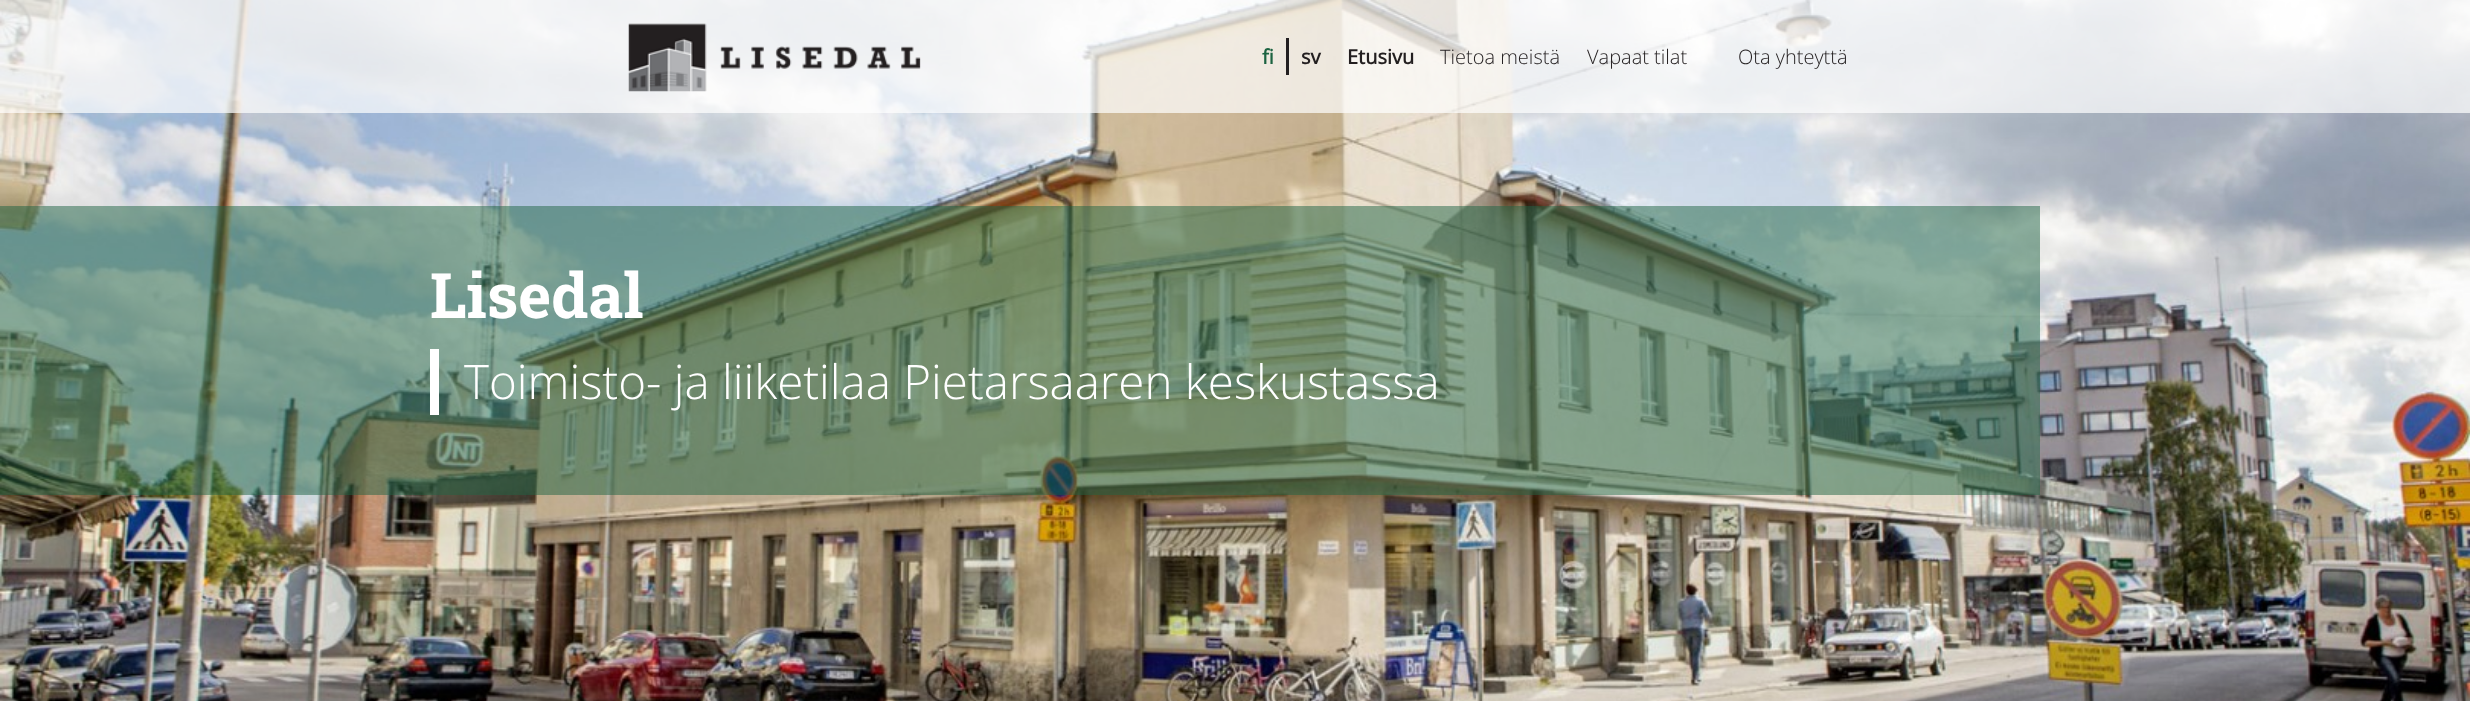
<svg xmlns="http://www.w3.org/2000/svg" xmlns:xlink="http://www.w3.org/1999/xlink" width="2470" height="701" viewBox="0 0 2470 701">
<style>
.cls-1{font:bold 20px Open Sans;fill:#1c6341}
.cls-2{font:bold 20px Open Sans;fill:#231f20}
.cls-3{font:300 20px Open Sans;fill:#231f20}
.cls-4{font:bold 62.5px Roboto Slab;fill:#ffffff}
.cls-5{font:300 47.5px Open Sans;fill:#ffffff}
</style>
<rect width="100%" height="100%" fill="#ffffff"/>
<image xlink:href="image1.png" x="0" y="0" width="2470" height="701"/>
<rect fill="#ffffff" fill-opacity="0.7" x="0" y="0" width="2470" height="113"/>
<image xlink:href="image0.png" x="628" y="23" width="293" height="69"/>
<rect fill="#231f20" x="1286" y="38" width="3" height="37"/>
<rect fill="#206443" fill-opacity="0.5" x="0" y="206" width="2040" height="289"/>
<rect fill="#ffffff" x="430" y="349" width="9" height="66"/>
<text class="cls-1" x="1262" y="64">fi</text>
<text class="cls-2" x="1301" y="64">sv</text>
<text class="cls-2" x="1347" y="64">Etusivu</text>
<text class="cls-3" x="1440" y="64">Tietoa meistä</text>
<text class="cls-3" x="1587" y="64">Vapaat tilat</text>
<text class="cls-3" x="1738" y="64">Ota yhteyttä</text>
<text class="cls-4" x="430" y="318">Lisedal</text>
<text class="cls-5" x="464" y="399">Toimisto- ja liiketilaa Pietarsaaren keskustassa</text>
</svg>
